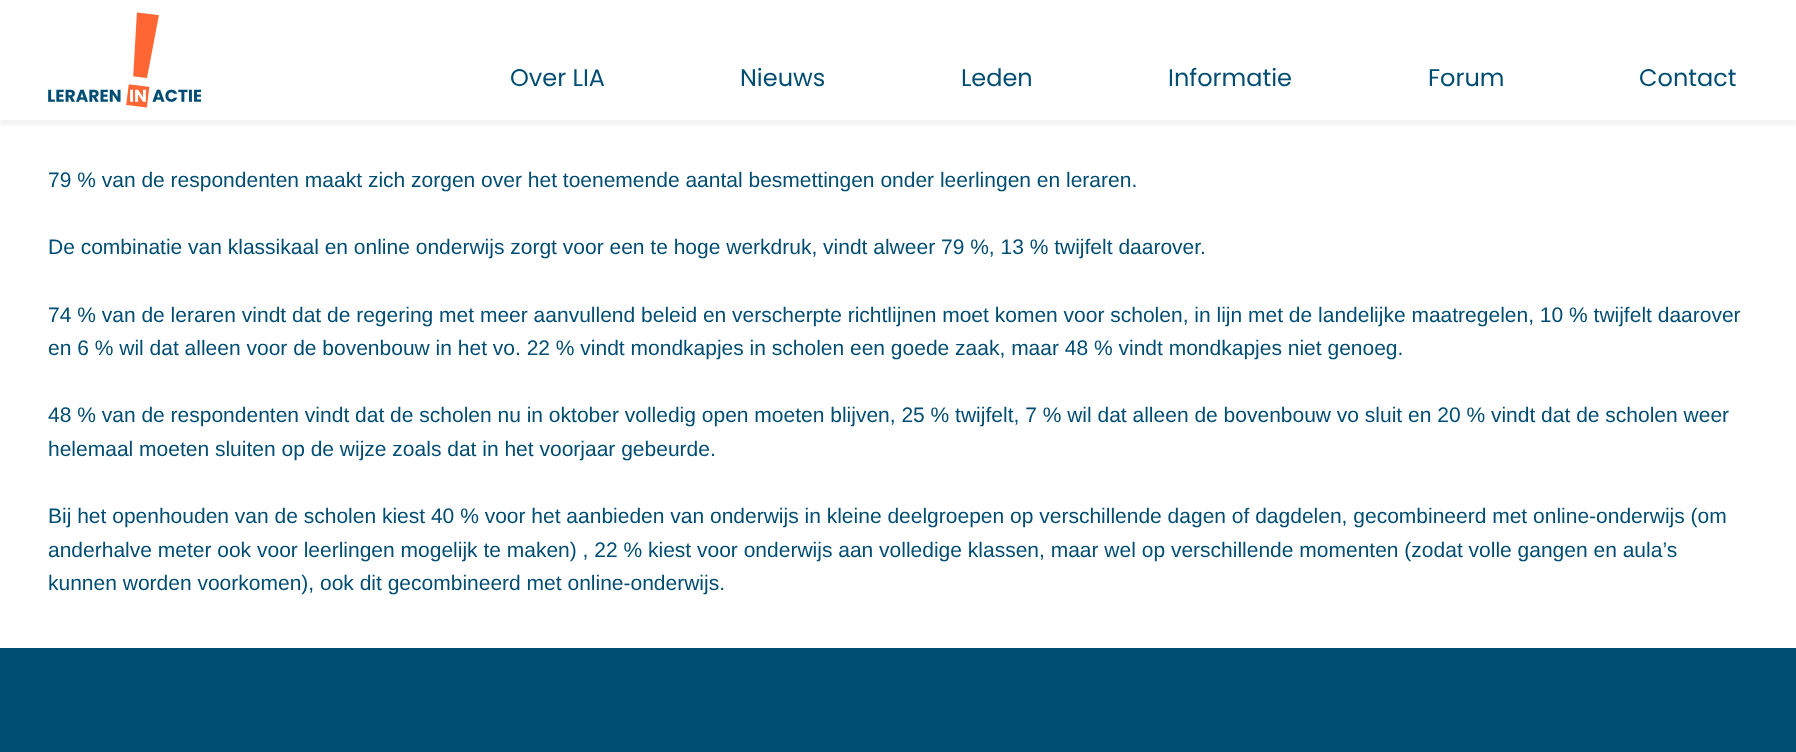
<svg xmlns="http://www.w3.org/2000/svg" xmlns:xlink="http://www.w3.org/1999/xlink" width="1796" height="752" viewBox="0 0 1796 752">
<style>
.cls-1{font:24px Poppins;fill:#004d73}
.cls-2{font:21px Liberation Sans;fill:#004d73}
</style>
<rect width="100%" height="100%" fill="#ffffff"/>
<rect fill="#000000" fill-opacity="0.05" filter="blur(2px)" x="0" y="5" width="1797" height="120"/>
<rect fill="#ffffff" x="0" y="3" width="1796" height="117"/>
<image xlink:href="image0.png" x="48" y="12" width="153" height="96"/>
<rect fill="#004d73" x="0" y="648" width="1796" height="104"/>
<text class="cls-1" x="510" y="86">Over LIA</text>
<text class="cls-1" x="740" y="86">Nieuws</text>
<text class="cls-1" x="961" y="86">Leden</text>
<text class="cls-1" x="1168" y="86">Informatie</text>
<text class="cls-1" x="1428" y="86">Forum</text>
<text class="cls-1" x="1639" y="86">Contact</text>
<text class="cls-2" x="48" y="187">79 % van de respondenten maakt zich zorgen over het toenemende aantal besmettingen onder leerlingen en leraren.</text>
<text class="cls-2" x="48" y="254">De combinatie van klassikaal en online onderwijs zorgt voor een te hoge werkdruk, vindt alweer 79 %, 13 % twijfelt daarover.</text>
<text class="cls-2"><tspan x="48" y="322">74 % van de leraren vindt dat de regering met meer aanvullend beleid en verscherpte richtlijnen moet komen voor scholen, in lijn met de landelijke maatregelen, 10 % twijfelt daarover</tspan><tspan x="48" y="355">en 6 % wil dat alleen voor de bovenbouw in het vo. 22 % vindt mondkapjes in scholen een goede zaak, maar 48 % vindt mondkapjes niet genoeg.</tspan></text>
<text class="cls-2"><tspan x="48" y="422">48 % van de respondenten vindt dat de scholen nu in oktober volledig open moeten blijven, 25 % twijfelt, 7 % wil dat alleen de bovenbouw vo sluit en 20 % vindt dat de scholen weer</tspan><tspan x="48" y="456">helemaal moeten sluiten op de wijze zoals dat in het voorjaar gebeurde.</tspan></text>
<text class="cls-2"><tspan x="48" y="523">Bij het openhouden van de scholen kiest 40 % voor het aanbieden van onderwijs in kleine deelgroepen op verschillende dagen of dagdelen, gecombineerd met online-onderwijs (om</tspan><tspan x="48" y="557">anderhalve meter ook voor leerlingen mogelijk te maken) , 22 % kiest voor onderwijs aan volledige klassen, maar wel op verschillende momenten (zodat volle gangen en aula’s</tspan><tspan x="48" y="590">kunnen worden voorkomen), ook dit gecombineerd met online-onderwijs.</tspan></text>
</svg>
